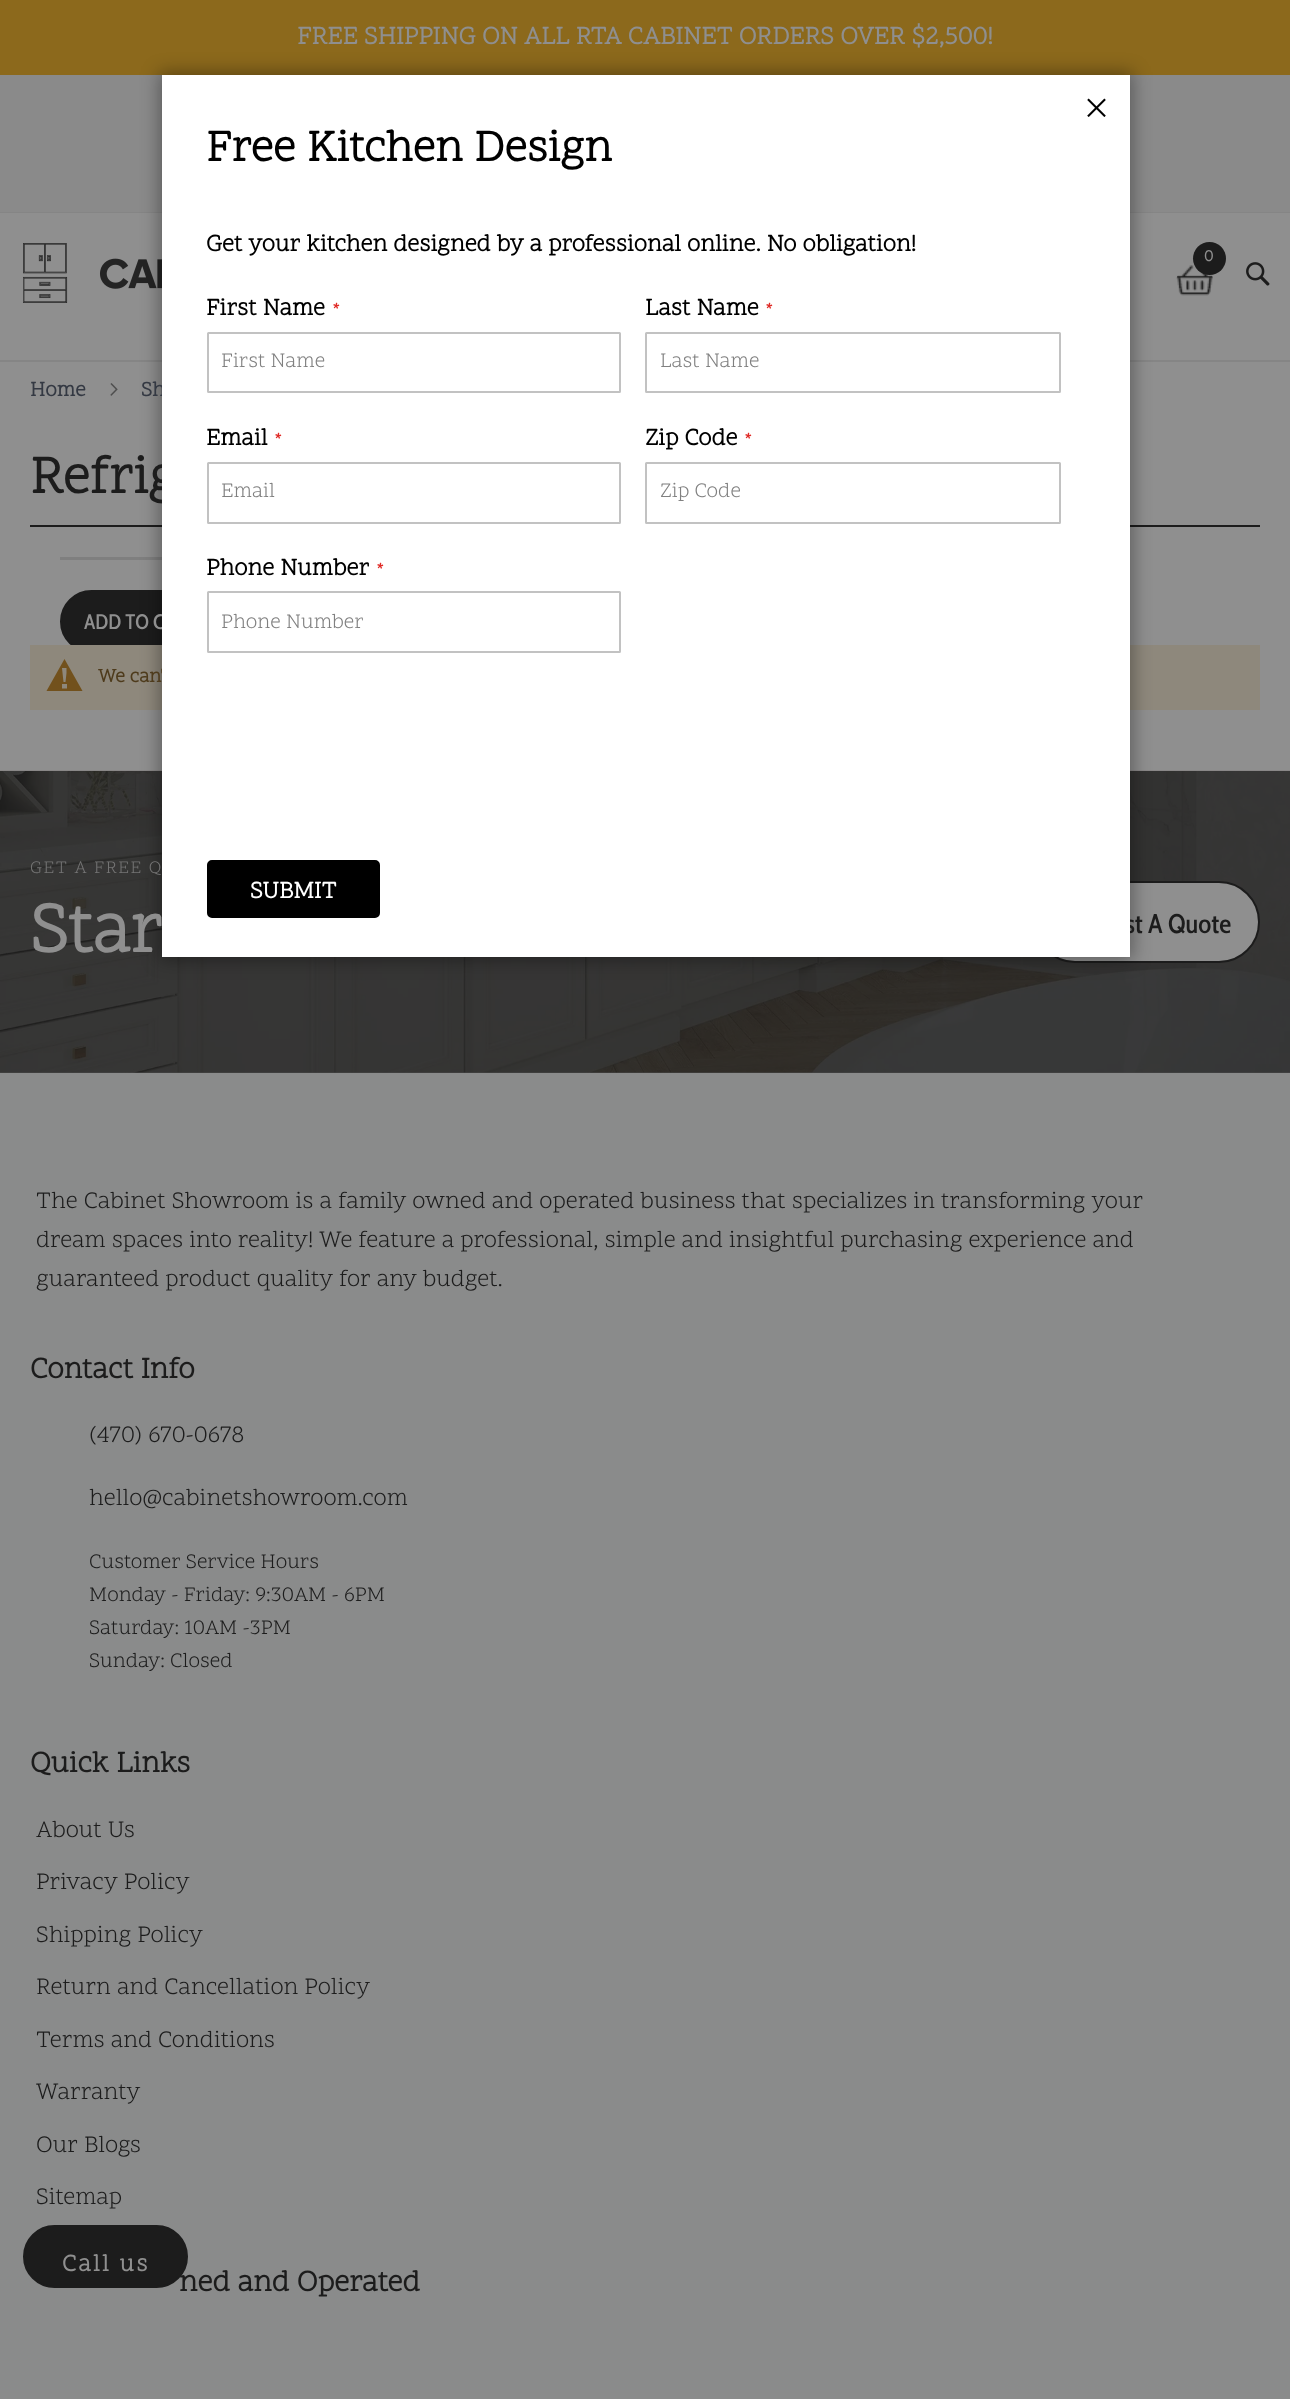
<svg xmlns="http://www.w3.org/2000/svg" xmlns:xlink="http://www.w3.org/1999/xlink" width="1290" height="2399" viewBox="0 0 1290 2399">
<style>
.cls-1{font:bold 25.5px Scope One;fill:#8f8f8f}
.cls-2{font:bold 16px Scope One;fill:#8f8f8f}
.cls-3{font:bold 21px Scope One;fill:#343943}
.cls-4{font:bold 54px Scope One;fill:#1c1c1c}
.cls-5{font:500 21px Cabin Condensed;fill:#8f8f8f}
.cls-6{font:bold 19.5px Scope One;fill:#4e3b1c}
.cls-7{font:18px Scope One;letter-spacing:1.5px;fill:#747474}
.cls-8{font:bold 72px Scope One;fill:#8f8f8f}
.cls-9{font:500 27px Cabin Condensed;fill:#1c1c1c}
.cls-10{font:24px Scope One;fill:#1c1c1c}
.cls-11{font:bold 30px Scope One;fill:#1c1c1c}
.cls-12{font:21px Scope One;fill:#1c1c1c}
.cls-13{font:bold 24px Scope One;letter-spacing:2.25px;fill:#8f8f8f}
.cls-14{font:bold 45px Scope One;fill:#000000}
.cls-15{font:bold 24px Scope One;fill:#000000}
.cls-16{font:bold 18px Scope One;fill:#e02b27}
.cls-17{font:21px Scope One;fill:#808080}
.cls-18{font:bold 24px Scope One;fill:#ffffff}
</style>
<rect width="100%" height="100%" fill="#8f8f8f"/>
<rect fill="#858585" x="0" y="360" width="1290" height="2"/>
<rect fill="#8c691c" x="0" y="0" width="1290" height="75"/>
<rect fill="#8a8a8a" x="0" y="75" width="1290" height="137"/>
<rect fill="#858585" x="0" y="212" width="1290" height="1"/>
<image xlink:href="image0.png" x="23" y="243" width="139" height="60"/>
<image xlink:href="image1.png" x="1176" y="265" width="37" height="31"/>
<circle fill="#1c1c1c" cx="1209.5" cy="258.5" r="16.5"/>
<image xlink:href="image2.png" x="1246" y="262" width="24" height="24"/>
<image xlink:href="image3.png" x="110" y="383" width="8" height="13"/>
<rect fill="#1c1c1c" x="30" y="525" width="1230" height="2"/>
<rect fill="#7f7f7f" x="60" y="557" width="102" height="3"/>
<rect fill="#1c1c1c" stroke="#1c1c1c" stroke-width="2" x="61" y="591" width="159" height="61" rx="30.5"/>
<rect fill="#8e887c" x="30" y="645" width="1230" height="65"/>
<path fill="#72511c" d="M64.5 659L46.5 691H82.5ZM66.5 668V673L65.5 682H63.5L62.5 673L62 668ZM62 688.5V684H67V688.5Z"/>
<rect fill="#8a8b8b" x="0" y="1073" width="1290" height="1326"/>
<rect fill="#484848" x="0" y="1072" width="1290" height="1"/>
<rect fill="#898787" x="0" y="770" width="1290" height="1"/>
<image xlink:href="image4.png" x="0" y="771" width="1290" height="302"/>
<rect fill="#8f8f8f" stroke="#1c1c1c" stroke-width="2" x="1035" y="882" width="224" height="80" rx="40"/>
<rect fill="#1c1c1c" stroke="#1c1c1c" stroke-width="2" x="24" y="2226" width="163" height="61" rx="30.5"/>
<rect fill="#000000" fill-opacity="0.35" filter="blur(9px)" x="159" y="72" width="974" height="888"/>
<text class="cls-1" x="297" y="44">FREE SHIPPING ON ALL RTA CABINET ORDERS OVER $2,500!</text>
<text class="cls-2" x="1204" y="261">0</text>
<text class="cls-3" x="30" y="396">Home</text>
<text class="cls-3" x="141" y="396">Sh</text>
<text class="cls-4" x="30" y="493">Refrig</text>
<text class="cls-5" x="84" y="629">ADD TO C</text>
<text class="cls-6" x="98" y="682">We can'</text>
<text class="cls-7" x="30" y="873">GET A FREE Q</text>
<text class="cls-8" x="30" y="952">Star</text>
<text class="cls-9" x="1125" y="933">st A Quote</text>
<text class="cls-10"><tspan x="36" y="1208">The Cabinet Showroom is a family owned and operated business that specializes in transforming your</tspan><tspan x="36" y="1247">dream spaces into reality! We feature a professional, simple and insightful purchasing experience and</tspan><tspan x="36" y="1286">guaranteed product quality for any budget.</tspan></text>
<text class="cls-11" x="30" y="1378">Contact Info</text>
<text class="cls-10" x="89" y="1442">(470) 670-0678</text>
<text class="cls-10" x="89" y="1505">hello@cabinetshowroom.com</text>
<text class="cls-12"><tspan x="89" y="1568">Customer Service Hours</tspan><tspan x="89" y="1601">Monday - Friday: 9:30AM - 6PM</tspan><tspan x="89" y="1634">Saturday: 10AM -3PM</tspan><tspan x="89" y="1667">Sunday: Closed</tspan></text>
<text class="cls-11" x="30" y="1772">Quick Links</text>
<text class="cls-10" x="36" y="1837">About Us</text>
<text class="cls-10" x="36" y="1889">Privacy Policy</text>
<text class="cls-10" x="36" y="1942">Shipping Policy</text>
<text class="cls-10" x="36" y="1994">Return and Cancellation Policy</text>
<text class="cls-10" x="36" y="2047">Terms and Conditions</text>
<text class="cls-10" x="36" y="2099">Warranty</text>
<text class="cls-10" x="36" y="2152">Our Blogs</text>
<text class="cls-10" x="36" y="2204">Sitemap</text>
<text class="cls-13" x="62" y="2271">Call us</text>
<text class="cls-11" x="179" y="2291">ned and Operated</text>
<rect fill="#ffffff" x="162" y="75" width="968" height="882"/>
<image xlink:href="image5.png" x="1087" y="98" width="19" height="19"/>
<text class="cls-14" x="206" y="161">Free Kitchen Design</text>
<text class="cls-15" x="206" y="251">Get your kitchen designed by a professional online. No obligation!</text>
<text class="cls-15" x="206" y="315">First Name</text>
<text class="cls-16" x="333" y="315">*</text>
<rect fill="none" stroke="#c2c2c2" stroke-width="2" x="208" y="333" width="412" height="59" rx="0.5"/>
<text class="cls-17" x="221" y="367">First Name</text>
<text class="cls-15" x="645" y="315">Last Name</text>
<text class="cls-16" x="766" y="315">*</text>
<rect fill="none" stroke="#c2c2c2" stroke-width="2" x="646" y="333" width="414" height="59" rx="0.5"/>
<text class="cls-17" x="660" y="367">Last Name</text>
<text class="cls-15" x="206" y="445">Email</text>
<text class="cls-16" x="275" y="445">*</text>
<rect fill="none" stroke="#c2c2c2" stroke-width="2" x="208" y="463" width="412" height="60" rx="0.5"/>
<text class="cls-17" x="221" y="497">Email</text>
<text class="cls-15" x="645" y="445">Zip Code</text>
<text class="cls-16" x="745" y="445">*</text>
<rect fill="none" stroke="#c2c2c2" stroke-width="2" x="646" y="463" width="414" height="60" rx="0.5"/>
<text class="cls-17" x="660" y="497">Zip Code</text>
<text class="cls-15" x="206" y="575">Phone Number</text>
<text class="cls-16" x="377" y="575">*</text>
<rect fill="none" stroke="#c2c2c2" stroke-width="2" x="208" y="592" width="412" height="60" rx="0.5"/>
<text class="cls-17" x="221" y="628">Phone Number</text>
<rect fill="#000000" stroke="#000000" stroke-width="2" x="208" y="861" width="171" height="56" rx="4"/>
<text class="cls-18" x="250" y="898">SUBMIT</text>
</svg>
